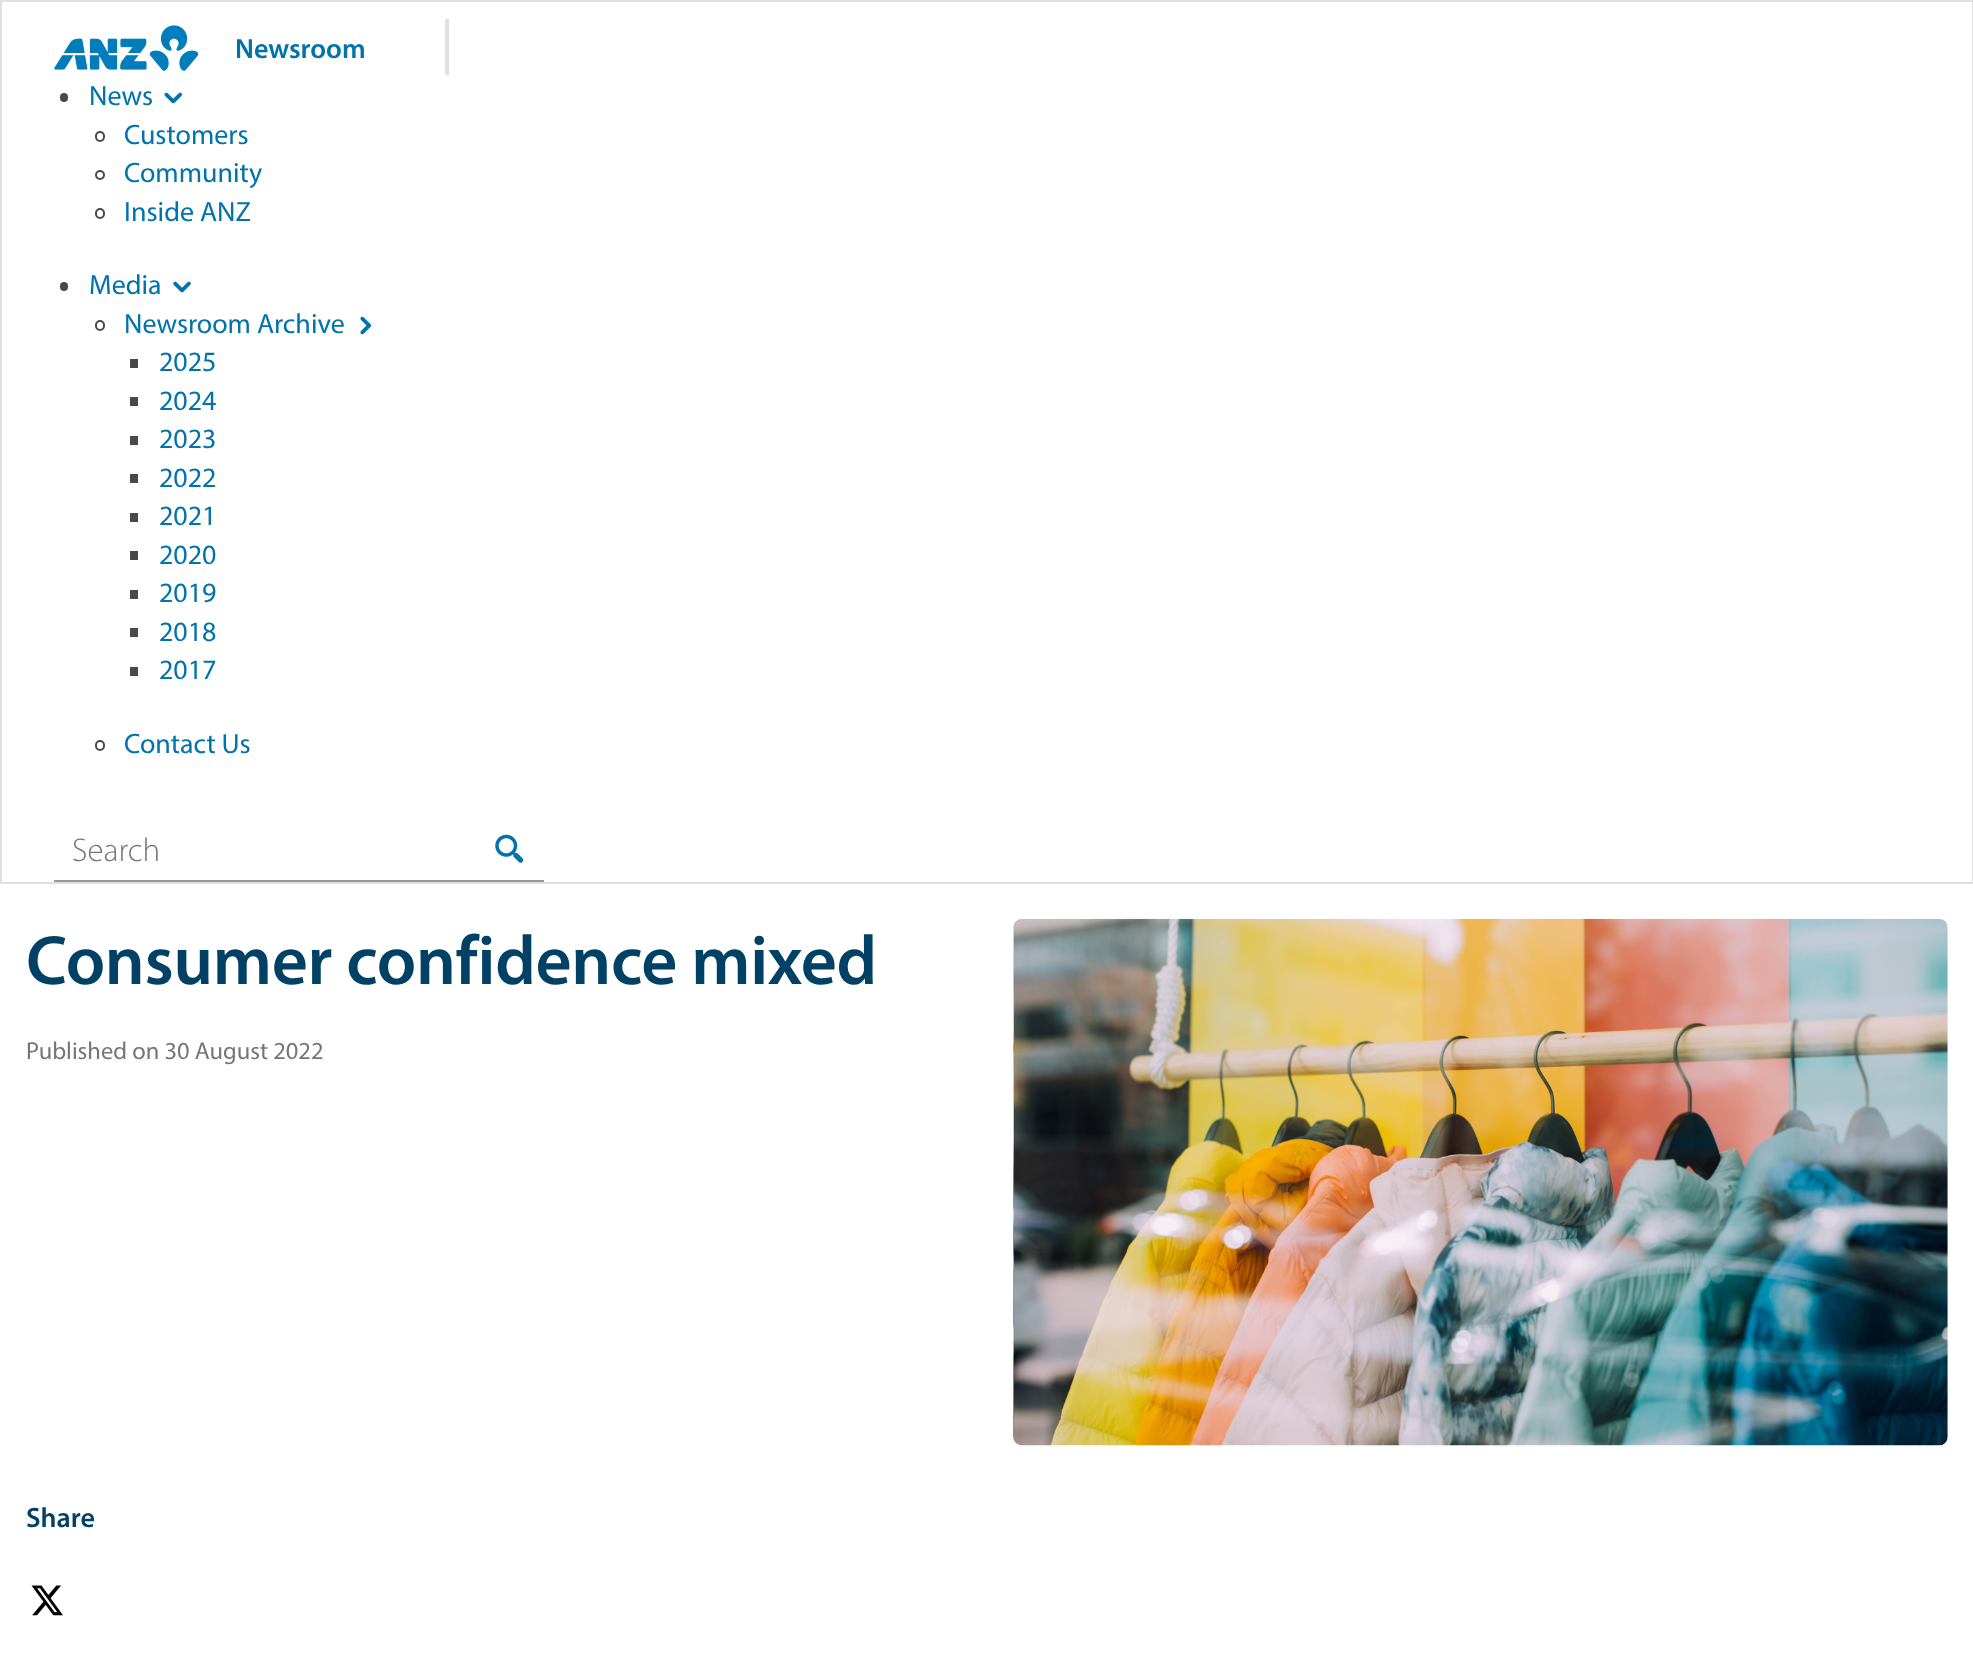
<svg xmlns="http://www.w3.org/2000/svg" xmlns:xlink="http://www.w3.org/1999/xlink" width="1973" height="1653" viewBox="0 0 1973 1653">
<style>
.cls-1{font:600 28px Myriad;fill:#0072ac}
.cls-2{font:28px Myriad;fill:#0072ac}
.cls-3{font:300 33px Myriad;fill:#747678}
.cls-4{font:600 70px Myriad;letter-spacing:-0.35px;fill:#004165}
.cls-5{font:24.5px Myriad;fill:#747678}
.cls-6{font:600 28px Myriad;fill:#004165}
</style>
<rect width="100%" height="100%" fill="#ffffff"/>
<rect fill="none" stroke="#e0e0e0" stroke-width="2" x="1" y="1" width="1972" height="882"/>
<image xlink:href="image0.png" x="54" y="25" width="145" height="46"/>
<rect fill="#e0e0e0" x="445" y="19" width="4" height="56"/>
<rect fill="#494949" x="60" y="93" width="8" height="9" rx="4"/>
<image xlink:href="image1.png" x="164" y="92" width="18" height="12"/>
<rect fill="none" stroke="#494949" stroke-width="2" x="96" y="132" width="8" height="9" rx="4"/>
<circle fill="none" stroke="#494949" stroke-width="2" cx="100" cy="175" r="4"/>
<rect fill="none" stroke="#494949" stroke-width="2" x="96" y="209" width="8" height="9" rx="4"/>
<rect fill="#494949" x="60" y="282" width="8" height="9" rx="4"/>
<image xlink:href="image2.png" x="173" y="281" width="18" height="12"/>
<rect fill="none" stroke="#494949" stroke-width="2" x="96" y="321" width="8" height="9" rx="4"/>
<image xlink:href="image3.png" x="360" y="316" width="12" height="19"/>
<rect fill="#494949" x="130" y="359" width="8" height="9"/>
<rect fill="#494949" x="130" y="397" width="8" height="9"/>
<rect fill="#494949" x="130" y="436" width="8" height="9"/>
<rect fill="#494949" x="130" y="474" width="8" height="9"/>
<rect fill="#494949" x="130" y="513" width="8" height="9"/>
<rect fill="#494949" x="130" y="551" width="8" height="9"/>
<rect fill="#494949" x="130" y="590" width="8" height="9"/>
<rect fill="#494949" x="130" y="628" width="8" height="9"/>
<rect fill="#494949" x="130" y="667" width="8" height="9"/>
<rect fill="none" stroke="#494949" stroke-width="2" x="96" y="741" width="8" height="9" rx="4"/>
<rect fill="#999999" x="54" y="880" width="490" height="2"/>
<image xlink:href="image4.png" x="495" y="834" width="29" height="29"/>
<image xlink:href="image5.png" x="1013" y="918" width="935" height="528"/>
<image xlink:href="image6.png" x="31" y="1585" width="32" height="31"/>
<text class="cls-1" x="235" y="58">Newsroom</text>
<text class="cls-2" x="89" y="105">News</text>
<text class="cls-2"><tspan x="124" y="144">Customers</tspan><tspan x="124" y="182">Community</tspan><tspan x="124" y="221">Inside ANZ</tspan></text>
<text class="cls-2" x="89" y="294">Media</text>
<text class="cls-2" x="124" y="333">Newsroom Archive</text>
<text class="cls-2"><tspan x="159" y="371">2025</tspan><tspan x="159" y="410">2024</tspan><tspan x="159" y="448">2023</tspan><tspan x="159" y="487">2022</tspan><tspan x="159" y="525">2021</tspan><tspan x="159" y="564">2020</tspan><tspan x="159" y="602">2019</tspan><tspan x="159" y="641">2018</tspan><tspan x="159" y="679">2017</tspan></text>
<text class="cls-2" x="124" y="753">Contact Us</text>
<text class="cls-3" x="72" y="861">Search</text>
<text class="cls-4" x="26" y="984">Consumer confidence mixed</text>
<text class="cls-5" x="26" y="1059">Published on 30 August 2022</text>
<text class="cls-6" x="26" y="1527">Share</text>
</svg>
